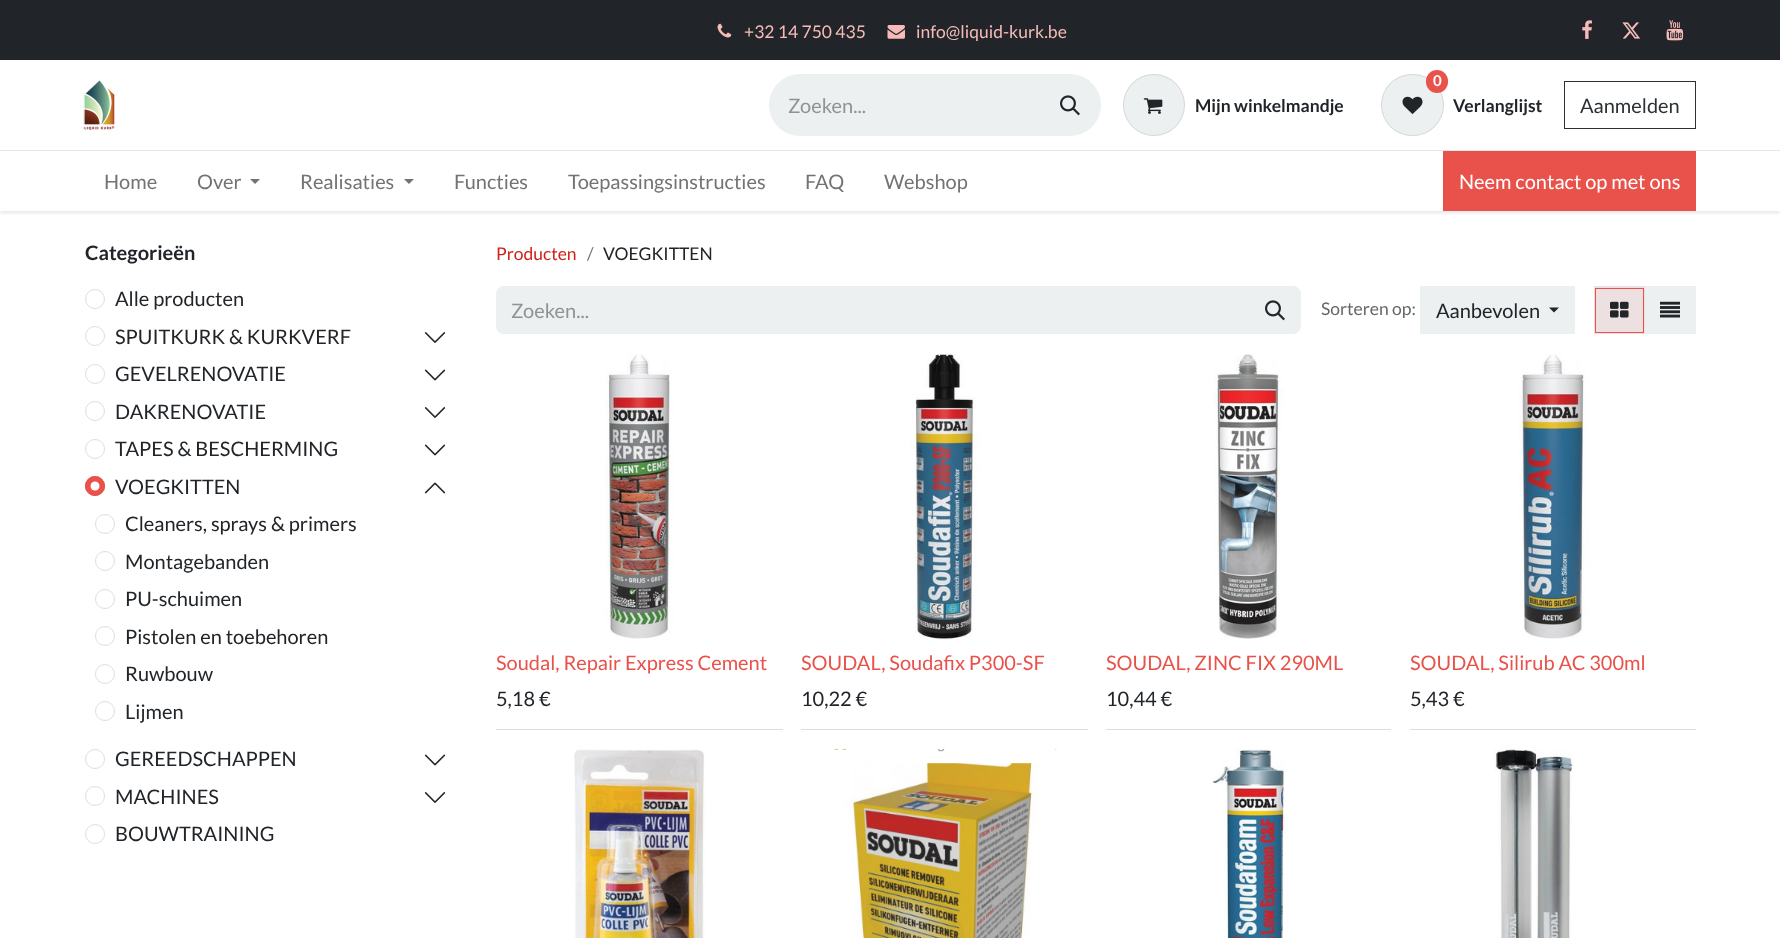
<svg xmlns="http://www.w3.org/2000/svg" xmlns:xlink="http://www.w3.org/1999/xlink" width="1780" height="938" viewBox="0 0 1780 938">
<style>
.cls-1{font:17.5px Lato;fill:#f6bbb8}
.cls-2{font:20px Lato;fill:#909294}
.cls-3{font:bold 17.5px Lato;fill:#212529}
.cls-4{font:bold 15px Lato;fill:#ffffff}
.cls-5{font:20px Lato;fill:#2c3134}
.cls-6{font:20px Lato;fill:#737373}
.cls-7{font:20px Lato;fill:#ffffff}
.cls-8{font:bold 20px Lato;fill:#212529}
.cls-9{font:20px Lato;fill:#212529}
.cls-10{font:17.5px Lato;fill:#ce2119}
.cls-11{font:17.5px Lato;fill:#6c757d}
.cls-12{font:17.5px Lato;fill:#212529}
.cls-13{font:17.5px Lato;fill:#646669}
.cls-14{font:20px Lato;fill:#e9524b}
</style>
<defs>
<clipPath id="clip1"><rect x="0" y="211" width="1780" height="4"/></clipPath>
</defs>
<rect width="100%" height="100%" fill="#ffffff"/>
<g clip-path="url(#clip1)">
<rect fill="#000000" fill-opacity="0.1" filter="blur(2px)" x="0" y="1" width="1780" height="212"/>
</g>
<rect fill="#212529" x="0" y="0" width="1780" height="60"/>
<image xlink:href="image0.png" x="717" y="23" width="15" height="15"/>
<image xlink:href="image1.png" x="887" y="25" width="18" height="14"/>
<image xlink:href="image2.png" x="1582" y="20" width="10" height="19"/>
<image xlink:href="image3.png" x="1622" y="22" width="19" height="17"/>
<image xlink:href="image4.png" x="1666" y="20" width="18" height="21"/>
<image xlink:href="image5.png" x="83" y="80" width="32" height="50"/>
<path fill="#ecf0f1" d="M800 74H1040V136H800C783 136 769 122 769 105C769 88 783 74 800 74Z"/>
<path fill="#ecf0f1" d="M1039 74H1070C1087 74 1101 88 1101 105C1101 122 1087 136 1070 136H1039Z"/>
<image xlink:href="image6.png" x="1060" y="95" width="20" height="21"/>
<circle fill="#ecf0f1" cx="1154" cy="105" r="31"/>
<circle fill="none" stroke="#000000" stroke-opacity="0.1" cx="1154" cy="105" r="30.5"/>
<image xlink:href="image7.png" x="1143" y="98" width="20" height="16"/>
<rect fill="#ecf0f1" x="1381" y="74" width="63" height="62" rx="31"/>
<rect fill="none" stroke="#000000" stroke-opacity="0.1" x="1381.5" y="74.5" width="62" height="61" rx="30.5"/>
<rect fill="#e9524b" x="1426" y="70" width="22" height="23" rx="11"/>
<image xlink:href="image8.png" x="1402" y="96" width="21" height="18"/>
<rect fill="none" stroke="#2c3134" x="1564.5" y="81.5" width="131" height="47"/>
<rect fill="#e6e6e6" x="0" y="150" width="1780" height="1"/>
<path fill="#737373" d="M250 179H260L255 184Z"/>
<path fill="#737373" d="M404 179H414L409 184Z"/>
<rect fill="#e9524b" x="1443" y="151" width="253" height="60"/>
<circle fill="none" stroke="#dededf" cx="95" cy="299" r="9.5"/>
<circle fill="none" stroke="#dededf" cx="95" cy="336" r="9.5"/>
<image xlink:href="image9.png" x="424" y="332" width="22" height="11"/>
<circle fill="none" stroke="#dededf" cx="95" cy="374" r="9.5"/>
<image xlink:href="image10.png" x="424" y="369" width="22" height="12"/>
<circle fill="none" stroke="#dededf" cx="95" cy="411" r="9.5"/>
<image xlink:href="image9.png" x="424" y="407" width="22" height="11"/>
<circle fill="none" stroke="#dededf" cx="95" cy="449" r="9.5"/>
<image xlink:href="image10.png" x="424" y="444" width="22" height="12"/>
<circle fill="#e9524b" cx="95" cy="486" r="10"/>
<circle fill="#ffffff" cx="95" cy="486" r="4.5"/>
<circle fill="none" stroke="#e9524b" cx="95" cy="486" r="9.5"/>
<image xlink:href="image11.png" x="424" y="482" width="22" height="12"/>
<circle fill="none" stroke="#dededf" cx="105" cy="524" r="9.5"/>
<circle fill="none" stroke="#dededf" cx="105" cy="561" r="9.5"/>
<circle fill="none" stroke="#dededf" cx="105" cy="599" r="9.5"/>
<circle fill="none" stroke="#dededf" cx="105" cy="636" r="9.5"/>
<circle fill="none" stroke="#dededf" cx="105" cy="674" r="9.5"/>
<circle fill="none" stroke="#dededf" cx="105" cy="711" r="9.5"/>
<circle fill="none" stroke="#dededf" cx="95" cy="759" r="9.5"/>
<image xlink:href="image10.png" x="424" y="754" width="22" height="12"/>
<circle fill="none" stroke="#dededf" cx="95" cy="796" r="9.5"/>
<image xlink:href="image9.png" x="424" y="792" width="22" height="11"/>
<circle fill="none" stroke="#dededf" cx="95" cy="834" r="9.5"/>
<path fill="#ecf0f1" d="M504 286H1250V334H504C499.5 334 496 330.5 496 326V294C496 289.5 499.5 286 504 286Z"/>
<path fill="#ecf0f1" stroke="#ecf0f1" d="M1249.5 286.5H1293C1297 286.5 1300.5 290 1300.5 294V326C1300.5 330 1297 333.5 1293 333.5H1249.5Z"/>
<image xlink:href="image6.png" x="1265" y="300" width="20" height="21"/>
<rect fill="#ecf0f1" x="1420" y="286" width="155" height="48"/>
<path fill="#212529" d="M1549 307.5H1559L1554 312.5Z"/>
<rect fill="#ece0e0" x="1594" y="286" width="51" height="48"/>
<rect fill="none" stroke="#e9524b" x="1595.5" y="288.5" width="48" height="44"/>
<image xlink:href="image12.png" x="1610" y="301" width="19" height="17"/>
<rect fill="#ecf0f1" x="1645" y="286" width="51" height="48"/>
<image xlink:href="image13.png" x="1660" y="301" width="20" height="17"/>
<rect fill="#dededf" x="496" y="729" width="287" height="1"/>
<image xlink:href="image14.png" x="605" y="354" width="70" height="285"/>
<rect fill="#dededf" x="801" y="729" width="287" height="1"/>
<image xlink:href="image15.png" x="909" y="354" width="71" height="286"/>
<rect fill="#dededf" x="1106" y="729" width="285" height="1"/>
<image xlink:href="image16.png" x="1213" y="354" width="71" height="285"/>
<rect fill="#dededf" x="1410" y="729" width="286" height="1"/>
<image xlink:href="image17.png" x="1517" y="354" width="72" height="285"/>
<image xlink:href="image18.png" x="574" y="749" width="132" height="189"/>
<image xlink:href="image19.png" x="834" y="748" width="223" height="190"/>
<image xlink:href="image20.png" x="1212" y="749" width="73" height="189"/>
<image xlink:href="image21.png" x="1494" y="749" width="80" height="189"/>
<text class="cls-1" x="744" y="38">+32 14 750 435</text>
<text class="cls-1" x="916" y="38">info@liquid-kurk.be</text>
<text class="cls-2" x="788" y="113">Zoeken...</text>
<text class="cls-3" x="1195" y="112">Mijn winkelmandje</text>
<text class="cls-4" x="1433" y="86">0</text>
<text class="cls-3" x="1453" y="112">Verlanglijst</text>
<text class="cls-5" x="1580" y="113">Aanmelden</text>
<text class="cls-6" x="104" y="189">Home</text>
<text class="cls-6" x="197" y="189">Over</text>
<text class="cls-6" x="300" y="189">Realisaties</text>
<text class="cls-6" x="454" y="189">Functies</text>
<text class="cls-6" x="568" y="189">Toepassingsinstructies</text>
<text class="cls-6" x="805" y="189">FAQ</text>
<text class="cls-6" x="884" y="189">Webshop</text>
<text class="cls-7" x="1459" y="189">Neem contact op met ons</text>
<text class="cls-8" x="85" y="260">Categorieën</text>
<text class="cls-9"><tspan x="115" y="306">Alle producten</tspan><tspan x="115" y="344">SPUITKURK &amp; KURKVERF</tspan><tspan x="115" y="381">GEVELRENOVATIE</tspan><tspan x="115" y="419">DAKRENOVATIE</tspan><tspan x="115" y="456">TAPES &amp; BESCHERMING</tspan><tspan x="115" y="494">VOEGKITTEN</tspan></text>
<text class="cls-9"><tspan x="125" y="531">Cleaners, sprays &amp; primers</tspan><tspan x="125" y="569">Montagebanden</tspan><tspan x="125" y="606">PU-schuimen</tspan><tspan x="125" y="644">Pistolen en toebehoren</tspan><tspan x="125" y="681">Ruwbouw</tspan><tspan x="125" y="719">Lijmen</tspan></text>
<text class="cls-9"><tspan x="115" y="766">GEREEDSCHAPPEN</tspan><tspan x="115" y="804">MACHINES</tspan><tspan x="115" y="841">BOUWTRAINING</tspan></text>
<text class="cls-10" x="496" y="260">Producten</text>
<text class="cls-11" x="587" y="260">/</text>
<text class="cls-12" x="603" y="260">VOEGKITTEN</text>
<text class="cls-2" x="511" y="318">Zoeken...</text>
<text class="cls-13" x="1321" y="315">Sorteren op:</text>
<text class="cls-9" x="1436" y="318">Aanbevolen</text>
<text class="cls-14" x="496" y="670">Soudal, Repair Express Cement</text>
<text class="cls-9" x="496" y="706">5,18 €</text>
<text class="cls-14" x="801" y="670">SOUDAL, Soudafix P300-SF</text>
<text class="cls-9" x="801" y="706">10,22 €</text>
<text class="cls-14" x="1106" y="670">SOUDAL, ZINC FIX 290ML</text>
<text class="cls-9" x="1106" y="706">10,44 €</text>
<text class="cls-14" x="1410" y="670">SOUDAL, Silirub AC 300ml</text>
<text class="cls-9" x="1410" y="706">5,43 €</text>
</svg>
